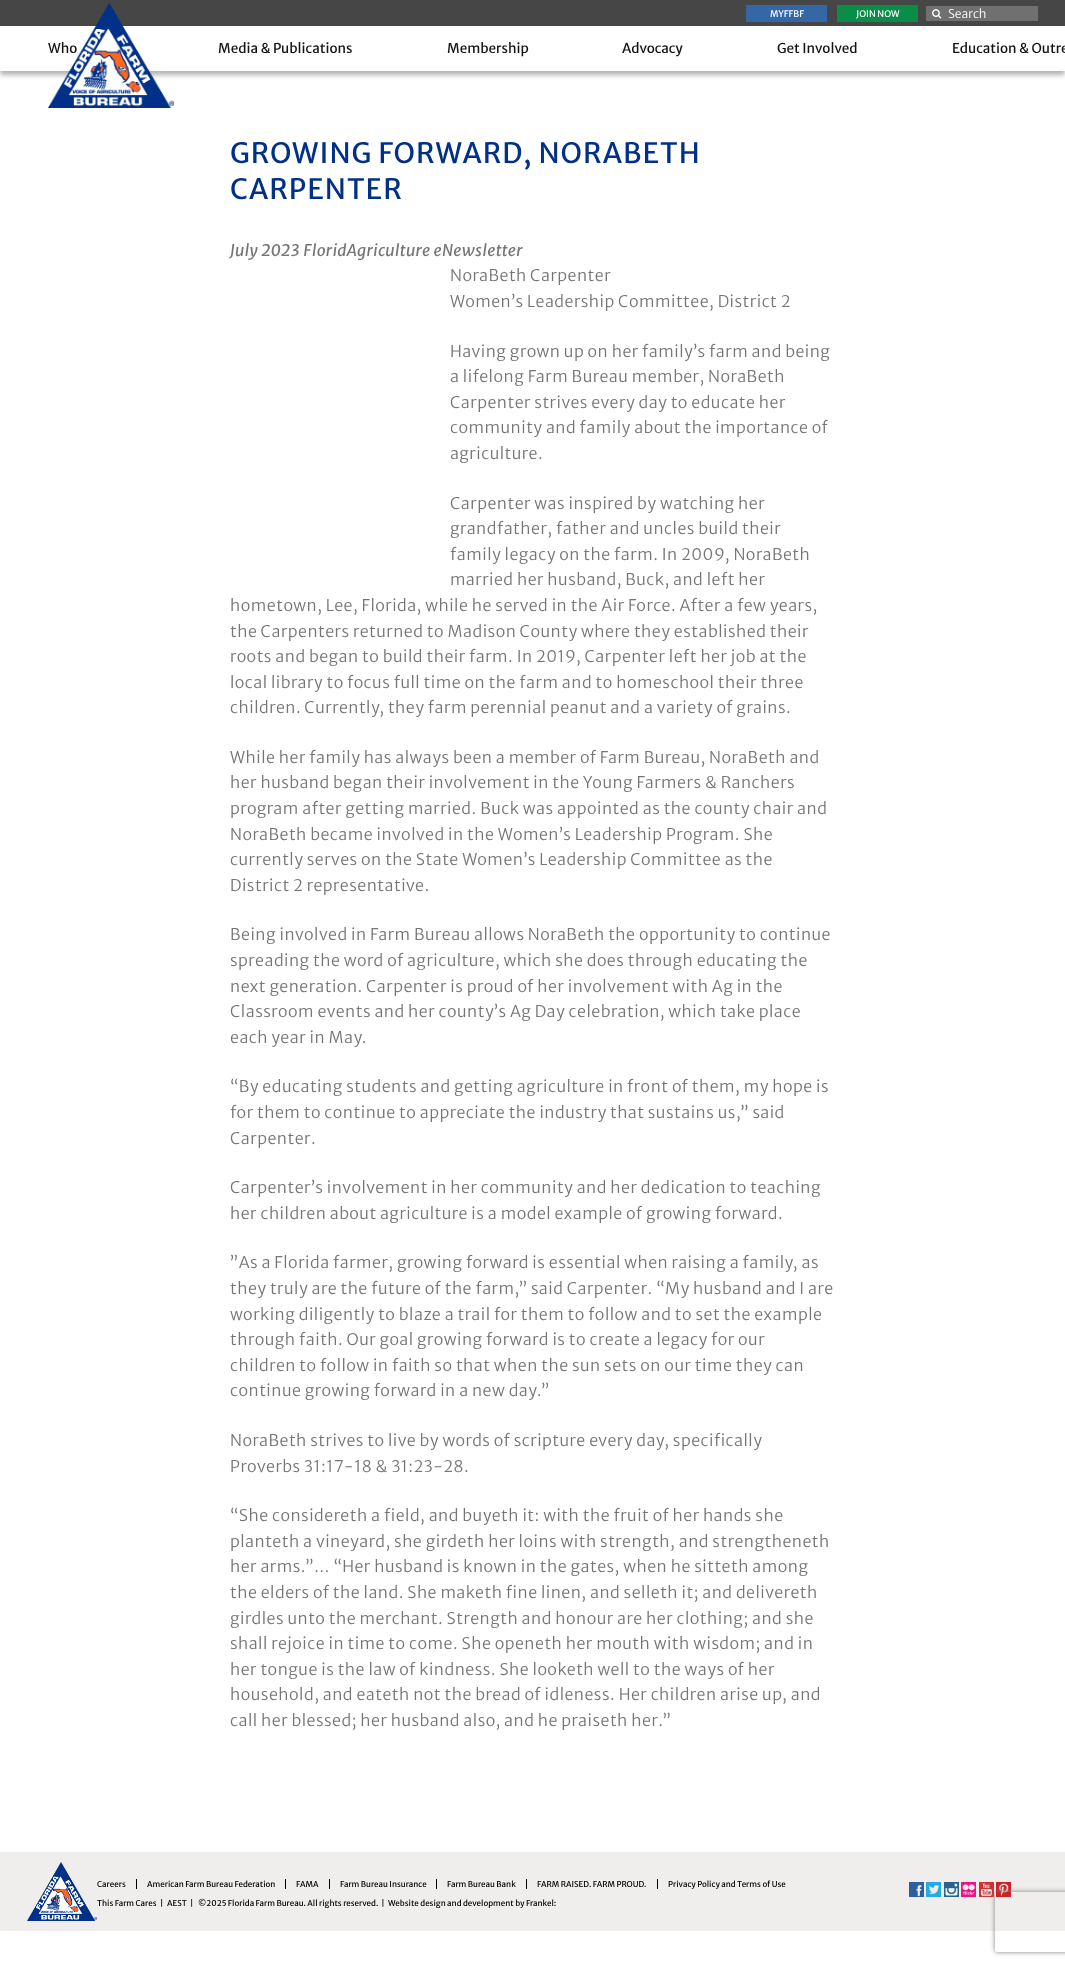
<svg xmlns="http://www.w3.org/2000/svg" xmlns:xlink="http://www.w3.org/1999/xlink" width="1065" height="1966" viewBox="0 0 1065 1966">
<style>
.cls-1{font:9px Merriweather Sans;fill:#ffffff}
.cls-2{font:300 12px Merriweather Sans;fill:#ffffff}
.cls-3{font:13.5px Merriweather Sans;fill:#141412}
.cls-4{font:28px Merriweather Sans;letter-spacing:1px;fill:#003087}
.cls-5{font:italic 16px Merriweather Sans;letter-spacing:0.25px;fill:#757576}
.cls-6{font:300 16px Merriweather Sans;letter-spacing:0.5px;fill:#757576}
.cls-7{font:8px Merriweather Sans;fill:#000000}
</style>
<defs>
<clipPath id="clip1"><path d="M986 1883H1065V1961H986ZM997 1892H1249C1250 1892 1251 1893 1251 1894V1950C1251 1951 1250 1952 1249 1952H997C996 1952 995 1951 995 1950V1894C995 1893 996 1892 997 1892Z" clip-rule="evenodd"/></clipPath>
</defs>
<rect width="100%" height="100%" fill="#ffffff"/>
<rect fill="#464646" x="0" y="0" width="1065" height="26"/>
<rect fill="#3367a5" x="746" y="5" width="81" height="17"/>
<rect fill="#0b8d4a" x="837" y="5" width="81" height="17"/>
<rect fill="#707070" x="926" y="6" width="112" height="15"/>
<image xlink:href="image0.png" x="932" y="9" width="10" height="10"/>
<rect fill="#000000" fill-opacity="0.3" filter="blur(2.5px)" x="0" y="30" width="1065" height="45"/>
<rect fill="#ffffff" x="0" y="26" width="1065" height="45"/>
<rect fill="#efeeec" x="0" y="1852" width="1065" height="79"/>
<image xlink:href="image2.png" x="27" y="1862" width="70" height="59"/>
<rect fill="#000000" x="136" y="1879" width="1" height="10"/>
<rect fill="#000000" x="285" y="1879" width="1" height="10"/>
<rect fill="#000000" x="329" y="1879" width="1" height="10"/>
<rect fill="#000000" x="436" y="1879" width="1" height="10"/>
<rect fill="#000000" x="526" y="1879" width="1" height="10"/>
<rect fill="#000000" x="657" y="1879" width="1" height="10"/>
<image xlink:href="image3.png" x="909" y="1882" width="15" height="15"/>
<image xlink:href="image4.png" x="926" y="1882" width="15" height="15"/>
<image xlink:href="image5.png" x="944" y="1882" width="15" height="15"/>
<image xlink:href="image6.png" x="961" y="1882" width="15" height="15"/>
<image xlink:href="image7.png" x="979" y="1882" width="15" height="15"/>
<image xlink:href="image8.png" x="996" y="1882" width="15" height="15"/>
<g clip-path="url(#clip1)">
<rect fill="#808080" filter="blur(2.5px)" x="995" y="1892" width="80" height="60" rx="2"/>
</g>
<text class="cls-1" x="770" y="17">MYFFBF</text>
<text class="cls-1" x="856" y="17">JOIN NOW</text>
<text class="cls-2" x="948" y="18">Search</text>
<text class="cls-3" x="48" y="53">Who</text>
<image xlink:href="image1.png" x="48" y="3" width="126" height="105"/>
<text class="cls-3" x="218" y="53">Media &amp; Publications</text>
<text class="cls-3" x="447" y="53">Membership</text>
<text class="cls-3" x="622" y="53">Advocacy</text>
<text class="cls-3" x="777" y="53">Get Involved</text>
<text class="cls-3" x="952" y="53">Education &amp; Outre</text>
<text class="cls-4"><tspan x="230" y="163">GROWING FORWARD, NORABETH</tspan><tspan x="230" y="199">CARPENTER</tspan></text>
<text class="cls-5" x="230" y="256">July 2023 FloridAgriculture eNewsletter</text>
<text class="cls-6"><tspan x="450" y="281">NoraBeth Carpenter</tspan><tspan x="450" y="307">Women’s Leadership Committee, District 2</tspan></text>
<text class="cls-6"><tspan x="450" y="357">Having grown up on her family’s farm and being</tspan><tspan x="450" y="382">a lifelong Farm Bureau member, NoraBeth</tspan><tspan x="450" y="408">Carpenter strives every day to educate her</tspan><tspan x="450" y="433">community and family about the importance of</tspan><tspan x="450" y="459">agriculture.</tspan></text>
<text class="cls-6"><tspan x="450" y="509">Carpenter was inspired by watching her</tspan><tspan x="450" y="534">grandfather, father and uncles build their</tspan><tspan x="450" y="560">family legacy on the farm. In 2009, NoraBeth</tspan><tspan x="450" y="585">married her husband, Buck, and left her</tspan></text>
<text class="cls-6"><tspan x="230" y="611">hometown, Lee, Florida, while he served in the Air Force. After a few years,</tspan><tspan x="230" y="637">the Carpenters returned to Madison County where they established their</tspan><tspan x="230" y="662">roots and began to build their farm. In 2019, Carpenter left her job at the</tspan><tspan x="230" y="688">local library to focus full time on the farm and to homeschool their three</tspan><tspan x="230" y="713">children. Currently, they farm perennial peanut and a variety of grains.</tspan></text>
<text class="cls-6"><tspan x="230" y="763">While her family has always been a member of Farm Bureau, NoraBeth and</tspan><tspan x="230" y="788">her husband began their involvement in the Young Farmers &amp; Ranchers</tspan><tspan x="230" y="814">program after getting married. Buck was appointed as the county chair and</tspan><tspan x="230" y="840">NoraBeth became involved in the Women’s Leadership Program. She</tspan><tspan x="230" y="865">currently serves on the State Women’s Leadership Committee as the</tspan><tspan x="230" y="891">District 2 representative.</tspan></text>
<text class="cls-6"><tspan x="230" y="940">Being involved in Farm Bureau allows NoraBeth the opportunity to continue</tspan><tspan x="230" y="966">spreading the word of agriculture, which she does through educating the</tspan><tspan x="230" y="992">next generation. Carpenter is proud of her involvement with Ag in the</tspan><tspan x="230" y="1017">Classroom events and her county’s Ag Day celebration, which take place</tspan><tspan x="230" y="1043">each year in May.</tspan></text>
<text class="cls-6"><tspan x="230" y="1092">“By educating students and getting agriculture in front of them, my hope is</tspan><tspan x="230" y="1118">for them to continue to appreciate the industry that sustains us,” said</tspan><tspan x="230" y="1144">Carpenter.</tspan></text>
<text class="cls-6"><tspan x="230" y="1193">Carpenter’s involvement in her community and her dedication to teaching</tspan><tspan x="230" y="1219">her children about agriculture is a model example of growing forward.</tspan></text>
<text class="cls-6"><tspan x="230" y="1268">”As a Florida farmer, growing forward is essential when raising a family, as</tspan><tspan x="230" y="1294">they truly are the future of the farm,” said Carpenter. “My husband and I are</tspan><tspan x="230" y="1320">working diligently to blaze a trail for them to follow and to set the example</tspan><tspan x="230" y="1345">through faith. Our goal growing forward is to create a legacy for our</tspan><tspan x="230" y="1371">children to follow in faith so that when the sun sets on our time they can</tspan><tspan x="230" y="1396">continue growing forward in a new day.”</tspan></text>
<text class="cls-6"><tspan x="230" y="1446">NoraBeth strives to live by words of scripture every day, specifically</tspan><tspan x="230" y="1472">Proverbs 31:17-18 &amp; 31:23-28.</tspan></text>
<text class="cls-6"><tspan x="230" y="1521">“She considereth a field, and buyeth it: with the fruit of her hands she</tspan><tspan x="230" y="1547">planteth a vineyard, she girdeth her loins with strength, and strengtheneth</tspan><tspan x="230" y="1572">her arms.”… “Her husband is known in the gates, when he sitteth among</tspan><tspan x="230" y="1598">the elders of the land. She maketh fine linen, and selleth it; and delivereth</tspan><tspan x="230" y="1624">girdles unto the merchant. Strength and honour are her clothing; and she</tspan><tspan x="230" y="1649">shall rejoice in time to come. She openeth her mouth with wisdom; and in</tspan><tspan x="230" y="1675">her tongue is the law of kindness. She looketh well to the ways of her</tspan><tspan x="230" y="1700">household, and eateth not the bread of idleness. Her children arise up, and</tspan><tspan x="230" y="1726">call her blessed; her husband also, and he praiseth her.”</tspan></text>
<text class="cls-7" x="97" y="1887">Careers</text>
<text class="cls-7" x="147" y="1887">American Farm Bureau Federation</text>
<text class="cls-7" x="296" y="1887">FAMA</text>
<text class="cls-7" x="340" y="1887">Farm Bureau Insurance</text>
<text class="cls-7" x="447" y="1887">Farm Bureau Bank</text>
<text class="cls-7" x="537" y="1887">FARM RAISED. FARM PROUD.</text>
<text class="cls-7" x="668" y="1887">Privacy Policy and Terms of Use</text>
<text class="cls-7" x="97" y="1906">This Farm Cares</text>
<text class="cls-7" x="160" y="1906">|</text>
<text class="cls-7" x="167" y="1906">AEST</text>
<text class="cls-7" x="190" y="1906">|</text>
<text class="cls-7" xml:space="preserve" x="198" y="1906">©2025 Florida Farm Bureau. All rights reserved.  |</text>
<text class="cls-7" x="388" y="1906">Website design and development by Frankel:</text>
</svg>
